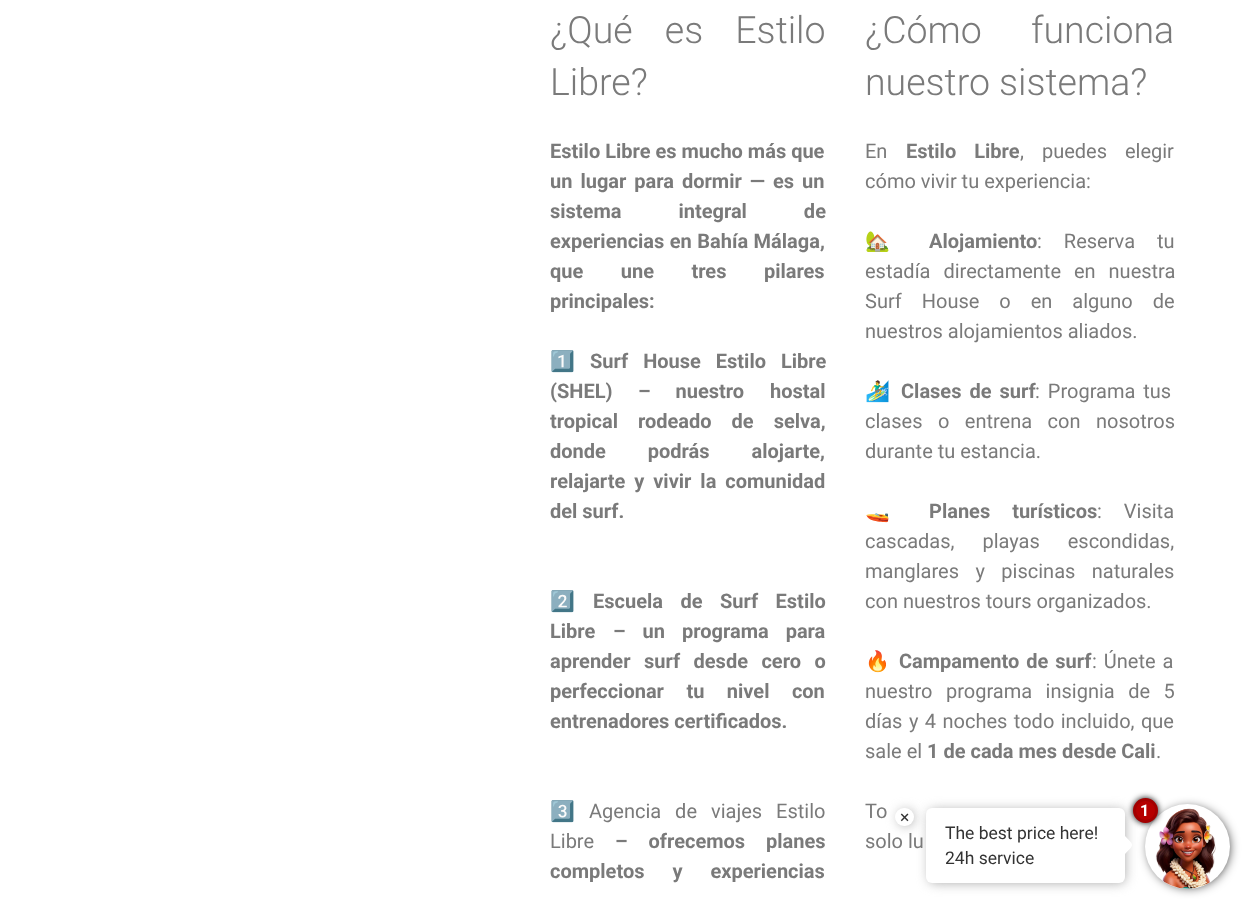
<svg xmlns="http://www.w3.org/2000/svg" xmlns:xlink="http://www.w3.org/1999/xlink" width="1256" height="901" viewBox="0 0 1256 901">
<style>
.cls-1{font:300 37.5px Roboto;fill:#7a7a7a}
.cls-2{font:bold 20px Roboto;fill:#7a7a7a}
.cls-3{font:bold 20px Noto Color Emoji;fill:#7a7a7a}
.cls-4{font:20px Noto Color Emoji;fill:#7a7a7a}
.cls-5{font:20px Roboto;fill:#7a7a7a}
.cls-6{font:bold 16px Roboto;fill:#ffffff}
.cls-7{font:17.5px Roboto;fill:#333333}
</style>
<rect width="100%" height="100%" fill="#ffffff"/>
<rect fill="#aaaaaa" filter="blur(6px)" x="929" y="810" width="196" height="73" rx="5"/>
<rect fill="#ffffff" x="926" y="808" width="199" height="75" rx="6"/>
<path fill="#ffffff" d="M1125 836C1134.5 846 1134.5 844 1125 854L1116 845Z"/>
<rect fill="#000000" filter="blur(6px)" x="1150" y="809" width="78" height="77" rx="38.5"/>
<circle fill="#ffffff" cx="1187.5" cy="846.5" r="42.5"/>
<image xlink:href="image0.png" x="1155" y="808" width="61" height="81"/>
<rect fill="#000000" filter="blur(3px)" x="1133" y="798" width="25" height="25" rx="12.5"/>
<circle fill="#b60000" stroke="#a30000" stroke-width="3" cx="1145.5" cy="810.5" r="11"/>
<rect fill="#aaaaaa" filter="blur(6px)" x="898" y="810" width="16" height="16" rx="8"/>
<rect fill="#ffffff" x="895" y="808" width="19" height="18" rx="9"/>
<text class="cls-1"><tspan x="550" y="43" word-spacing="23">¿Qué es Estilo</tspan><tspan x="550" y="95">Libre?</tspan></text>
<text class="cls-2"><tspan x="550" y="158">Estilo Libre es mucho más que</tspan><tspan x="550" y="188" word-spacing="3">un lugar para dormir — es un</tspan><tspan x="550" y="218" word-spacing="52">sistema integral de</tspan><tspan x="550" y="248" word-spacing="0.5">experiencias en Bahía Málaga</tspan></text>
<text class="cls-2" x="820" y="248">,</text>
<text class="cls-2"><tspan x="550" y="278" word-spacing="32.5">que une tres pilares</tspan><tspan x="550" y="308">principales:</tspan></text>
<text class="cls-3" x="550" y="368">1️⃣</text>
<text class="cls-2" x="590" y="368" word-spacing="10">Surf House Estilo Libre</text>
<text class="cls-2" x="550" y="398">(SHEL)</text>
<text class="cls-2" x="638" y="398" word-spacing="20">– nuestro</text>
<text class="cls-2" x="770" y="398">hostal</text>
<text class="cls-2" x="550" y="428">tropical</text>
<text class="cls-2" x="638" y="428" word-spacing="15">rodeado de selva,</text>
<text class="cls-2"><tspan x="550" y="458" word-spacing="37">donde podrás alojarte,</tspan><tspan x="550" y="488" word-spacing="4">relajarte y vivir la comunidad</tspan><tspan x="550" y="518">del surf.</tspan></text>
<text class="cls-3" x="550" y="608">2️⃣</text>
<text class="cls-2" x="593" y="608" word-spacing="12.5">Escuela de Surf Estilo</text>
<text class="cls-2" x="550" y="638">Libre</text>
<text class="cls-2" x="613" y="638" word-spacing="12">– un programa para</text>
<text class="cls-2"><tspan x="550" y="668" word-spacing="8.5">aprender surf desde cero o</tspan><tspan x="550" y="698" word-spacing="17.5">perfeccionar tu nivel con</tspan><tspan x="550" y="728">entrenadores certificados.</tspan></text>
<text class="cls-4" x="550" y="818">3️⃣</text>
<text class="cls-5" x="589" y="818" word-spacing="9">Agencia de viajes Estilo</text>
<text class="cls-5" x="550" y="848">Libre</text>
<text class="cls-2" x="615" y="848" word-spacing="16">– ofrecemos</text>
<text class="cls-2" x="766" y="848">planes</text>
<text class="cls-2" x="550" y="878" word-spacing="23">completos y experiencias</text>
<text class="cls-1"><tspan x="865" y="43" word-spacing="40">¿Cómo funciona</tspan><tspan x="865" y="95">nuestro sistema?</tspan></text>
<text class="cls-5" x="865" y="158">En</text>
<text class="cls-2" x="906" y="158" word-spacing="13">Estilo Libre</text>
<text class="cls-5" x="1020" y="158" word-spacing="13">, puedes elegir</text>
<text class="cls-5" x="865" y="188">cómo vivir tu experiencia:</text>
<text class="cls-4" x="865" y="248">🏡</text>
<text class="cls-2" x="929" y="248">Alojamiento</text>
<text class="cls-5" x="1037" y="248" word-spacing="17">: Reserva tu</text>
<text class="cls-5"><tspan x="865" y="278" word-spacing="8">estadía directamente en nuestra</tspan><tspan x="865" y="308" word-spacing="15">Surf House o en alguno de</tspan><tspan x="865" y="338">nuestros alojamientos aliados.</tspan></text>
<text class="cls-4" x="865" y="398">🏄‍♂️</text>
<text class="cls-2" x="901" y="398" word-spacing="3">Clases de surf</text>
<text class="cls-5" x="1035" y="398" word-spacing="3">: Programa tus</text>
<text class="cls-5"><tspan x="865" y="428" word-spacing="10.5">clases o entrena con nosotros</tspan><tspan x="865" y="458">durante tu estancia.</tspan></text>
<text class="cls-4" x="865" y="518">🚤</text>
<text class="cls-2" x="929" y="518" word-spacing="17">Planes turísticos</text>
<text class="cls-5" x="1097" y="518" word-spacing="17">: Visita</text>
<text class="cls-5"><tspan x="865" y="548" word-spacing="23">cascadas, playas escondidas,</tspan><tspan x="865" y="578" word-spacing="11.5">manglares y piscinas naturales</tspan><tspan x="865" y="608">con nuestros tours organizados.</tspan></text>
<text class="cls-4" x="865" y="668">🔥</text>
<text class="cls-2" x="899" y="668" word-spacing="2">Campamento de surf</text>
<text class="cls-5" x="1092" y="668" word-spacing="2">: Únete a</text>
<text class="cls-5"><tspan x="865" y="698" word-spacing="8.5">nuestro programa insignia de 5</tspan><tspan x="865" y="728" word-spacing="1.5">días y 4 noches todo incluido, que</tspan><tspan x="865" y="758">sale el</tspan></text>
<text class="cls-2" x="927" y="758">1 de cada mes desde Cali</text>
<text class="cls-5" x="1156" y="758">.</text>
<text class="cls-5"><tspan x="865" y="818" word-spacing="3">To</tspan><tspan x="865" y="848">solo lu</tspan></text>
<text class="cls-6" x="1140" y="816">1</text>
<text class="cls-7" x="900" y="823">×</text>
<text class="cls-7"><tspan x="945" y="839">The best price here!</tspan><tspan x="945" y="864">24h service</tspan></text>
</svg>
